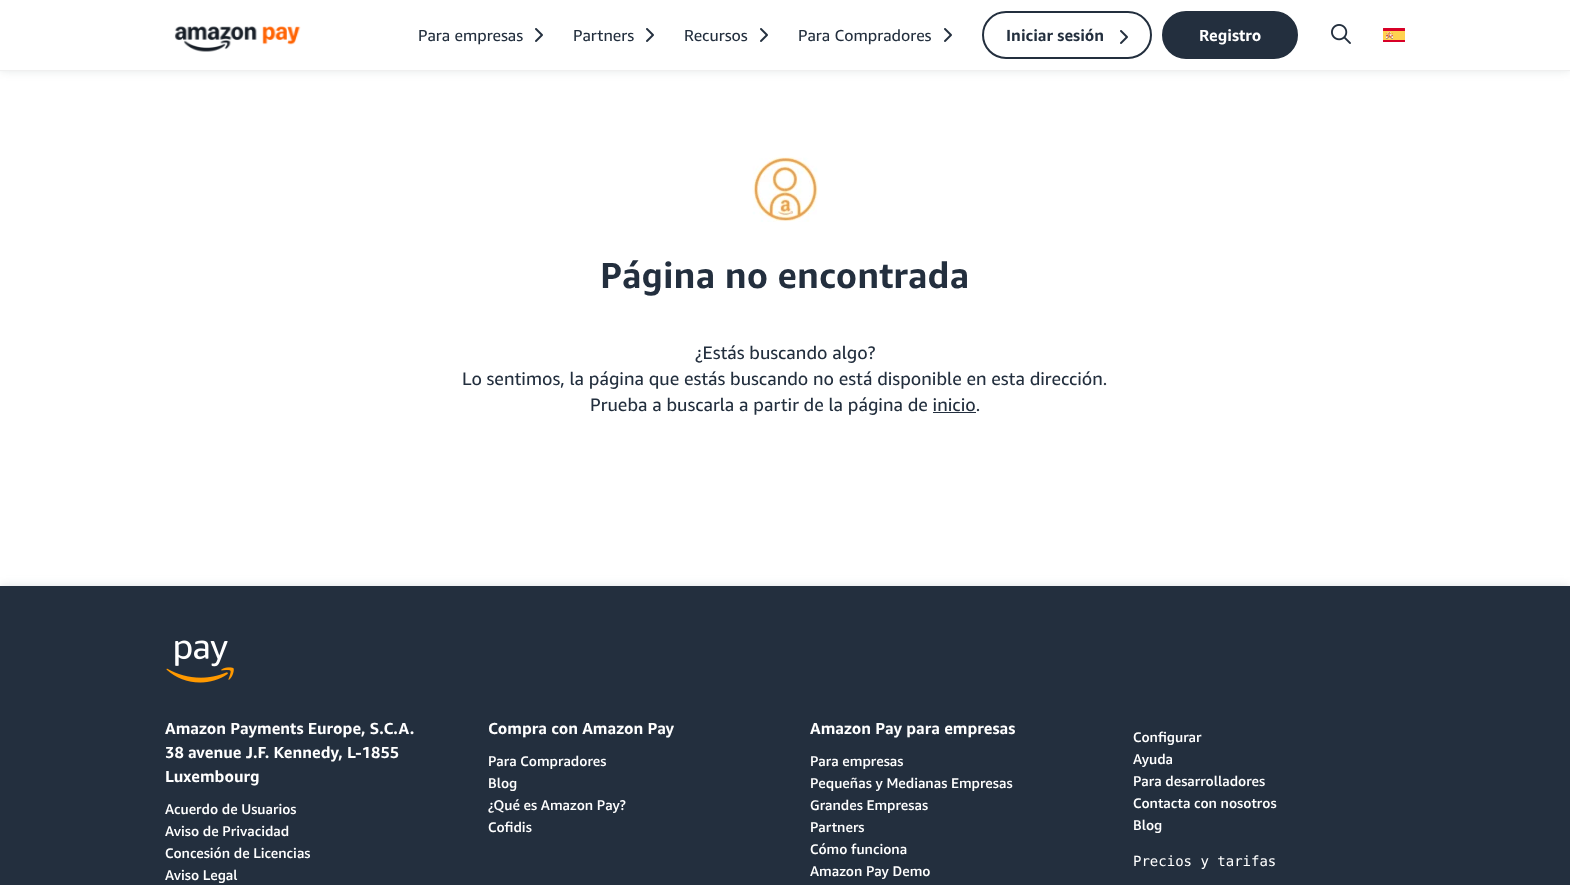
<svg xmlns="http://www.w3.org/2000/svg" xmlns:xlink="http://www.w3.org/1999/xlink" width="1570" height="885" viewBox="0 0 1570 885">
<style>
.cls-1{font:16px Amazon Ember;fill:#232f3e}
.cls-2{font:bold 16px Amazon Ember;fill:#232f3e}
.cls-3{font:bold 16px Amazon Ember;fill:#ffffff}
.cls-4{font:bold 36px Amazon Ember;fill:#232f3e}
.cls-5{font:18px Amazon Ember;fill:#232f3e}
.cls-6{font:500 14px Amazon Ember;fill:#ffffff}
.cls-7{font:14px DejaVu Sans Mono;fill:#ffffff}
</style>
<rect width="100%" height="100%" fill="#ffffff"/>
<rect fill="#a9b6b7" fill-opacity="0.4" filter="blur(5px)" x="0" y="0" width="1570" height="70"/>
<rect fill="#ffffff" x="0" y="0" width="1570" height="70"/>
<rect fill="#f0f0f0" x="0" y="70" width="1570" height="1"/>
<image xlink:href="image0.png" x="174" y="26" width="127" height="26"/>
<image xlink:href="image1.png" x="535" y="28" width="8" height="14"/>
<image xlink:href="image1.png" x="646" y="28" width="8" height="14"/>
<image xlink:href="image1.png" x="760" y="28" width="8" height="14"/>
<image xlink:href="image1.png" x="944" y="28" width="8" height="14"/>
<rect fill="none" stroke="#232f3e" stroke-width="2" x="983" y="12" width="168" height="46" rx="23"/>
<image xlink:href="image1.png" x="1120" y="30" width="8" height="14"/>
<rect fill="#232f3e" stroke="#232f3e" stroke-width="2" x="1163" y="12" width="134" height="46" rx="23"/>
<image xlink:href="image2.png" x="1331" y="24" width="20" height="20"/>
<image xlink:href="image3.png" x="1383" y="28" width="22" height="14"/>
<image xlink:href="image4.png" x="752" y="157" width="66" height="65"/>
<rect fill="#232f3e" x="933" y="412" width="43" height="1"/>
<rect fill="#aab7b8" fill-opacity="0.4" filter="blur(5px)" x="0" y="586" width="1570" height="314"/>
<rect fill="#232f3e" x="0" y="586" width="1570" height="299"/>
<image xlink:href="image5.png" x="166" y="640" width="68" height="43"/>
<text class="cls-1" x="418" y="41">Para empresas</text>
<text class="cls-1" x="573" y="41">Partners</text>
<text class="cls-1" x="684" y="41">Recursos</text>
<text class="cls-1" x="798" y="41">Para Compradores</text>
<text class="cls-2" x="1006" y="41">Iniciar sesión</text>
<text class="cls-3" x="1199" y="41">Registro</text>
<text class="cls-4" x="600" y="288">Página no encontrada</text>
<text class="cls-5" x="695" y="359">¿Estás buscando algo?</text>
<text class="cls-5" x="462" y="385">Lo sentimos, la página que estás buscando no está disponible en esta dirección.</text>
<text class="cls-5" x="590" y="411">Prueba a buscarla a partir de la página de inicio.</text>
<text class="cls-3"><tspan x="165" y="734">Amazon Payments Europe, S.C.A.</tspan><tspan x="165" y="758">38 avenue J.F. Kennedy, L-1855</tspan><tspan x="165" y="782">Luxembourg</tspan></text>
<text class="cls-6"><tspan x="165" y="814">Acuerdo de Usuarios</tspan><tspan x="165" y="836">Aviso de Privacidad</tspan><tspan x="165" y="858">Concesión de Licencias</tspan><tspan x="165" y="880">Aviso Legal</tspan></text>
<text class="cls-3" x="488" y="734">Compra con Amazon Pay</text>
<text class="cls-6"><tspan x="488" y="766">Para Compradores</tspan><tspan x="488" y="788">Blog</tspan><tspan x="488" y="810">¿Qué es Amazon Pay?</tspan><tspan x="488" y="832">Cofidis</tspan></text>
<text class="cls-3" x="810" y="734">Amazon Pay para empresas</text>
<text class="cls-6"><tspan x="810" y="766">Para empresas</tspan><tspan x="810" y="788">Pequeñas y Medianas Empresas</tspan><tspan x="810" y="810">Grandes Empresas</tspan><tspan x="810" y="832">Partners</tspan><tspan x="810" y="854">Cómo funciona</tspan><tspan x="810" y="876">Amazon Pay Demo</tspan></text>
<text class="cls-6"><tspan x="1133" y="742">Configurar</tspan><tspan x="1133" y="764">Ayuda</tspan><tspan x="1133" y="786">Para desarrolladores</tspan><tspan x="1133" y="808">Contacta con nosotros</tspan><tspan x="1133" y="830">Blog</tspan></text>
<text class="cls-7" x="1133" y="866">Precios y tarifas</text>
</svg>
